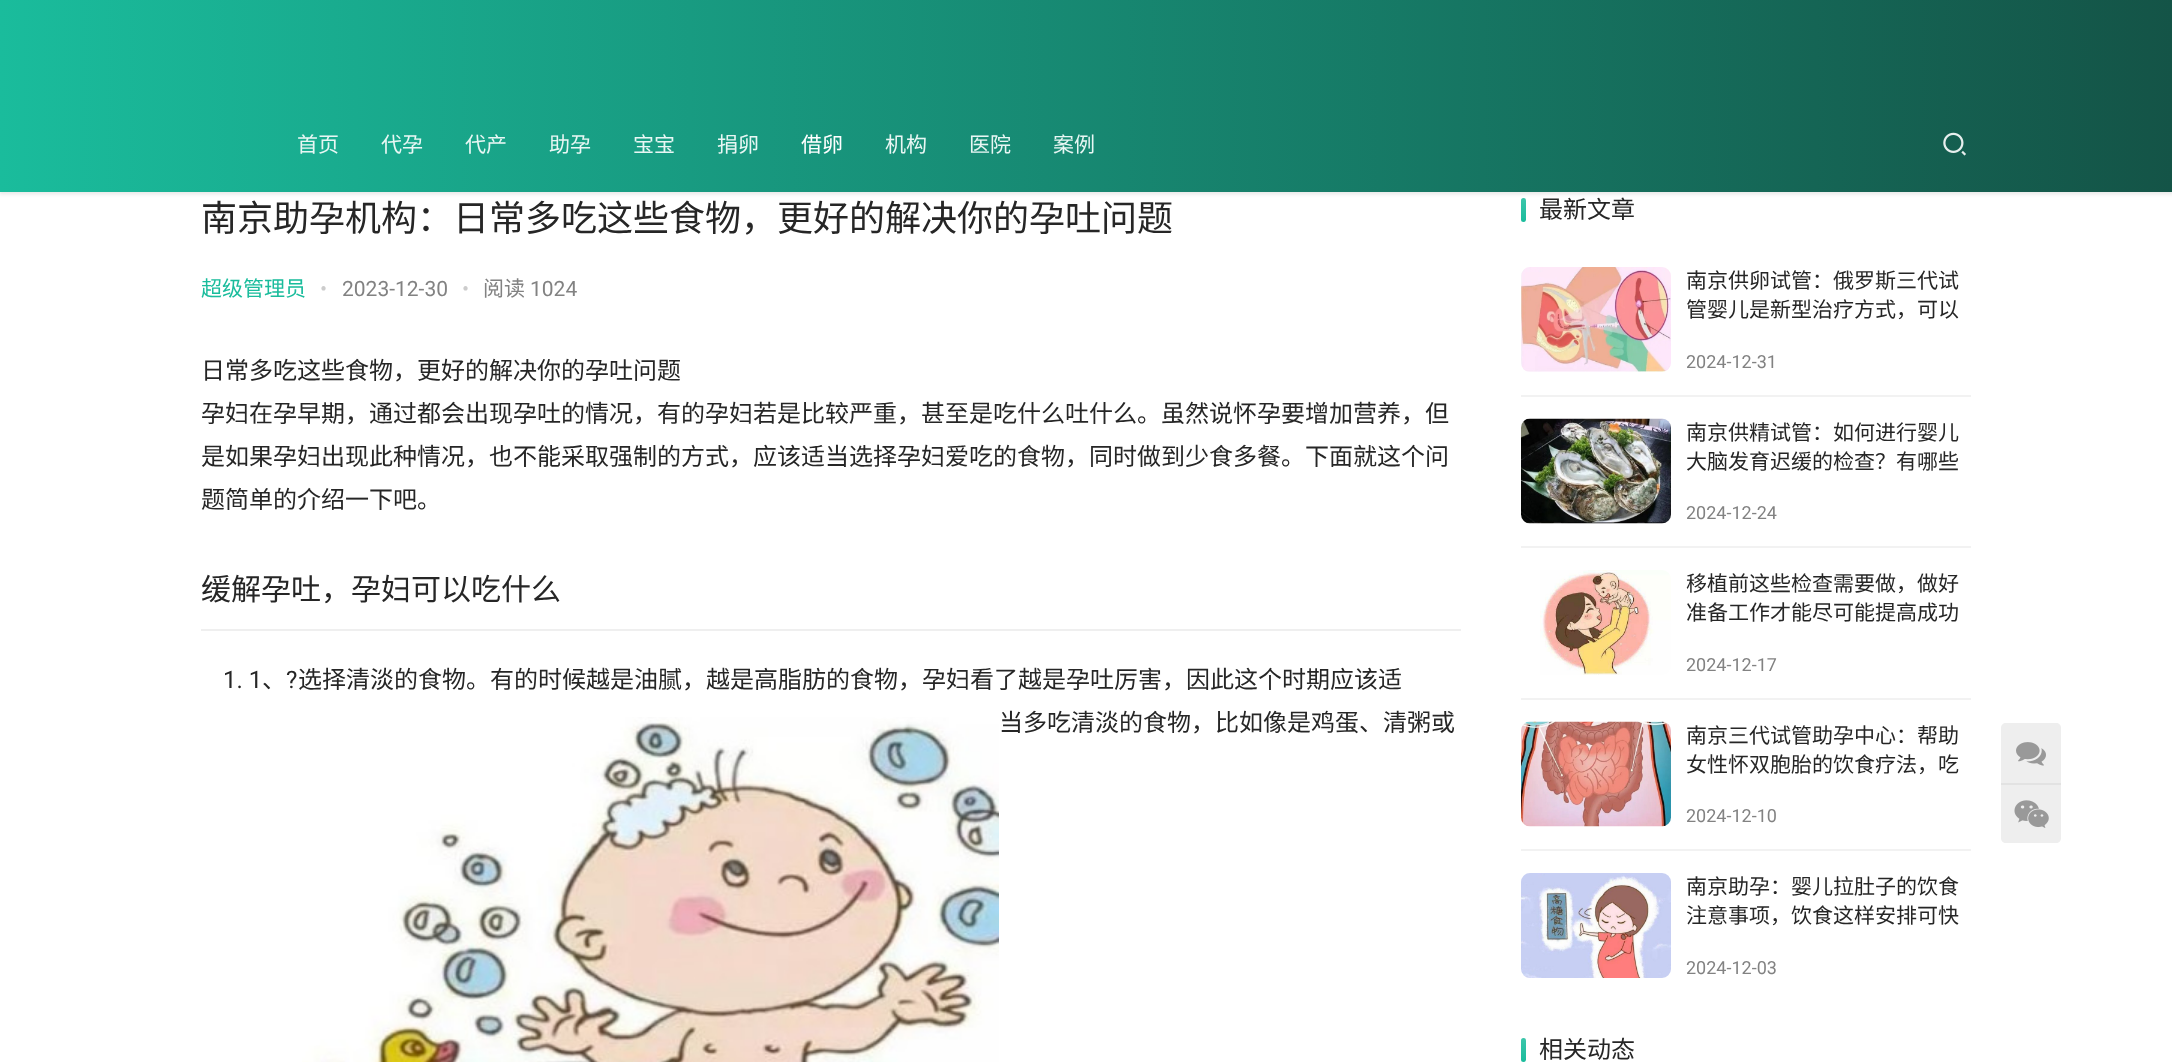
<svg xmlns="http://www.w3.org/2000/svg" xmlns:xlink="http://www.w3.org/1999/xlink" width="2172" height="1062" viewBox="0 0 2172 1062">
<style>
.cls-1{font:21px Noto Sans CJK SC;fill:#e8f7f4}
.cls-2{font:21px Noto Sans CJK SC;fill:#ffffff}
.cls-3{font:36px Noto Sans CJK SC;fill:#262626}
.cls-4{font:21px Noto Sans CJK SC;fill:#1abc9c}
.cls-5{font:21px Roboto;fill:#cccccc}
.cls-6{font:21px Roboto;fill:#828282}
.cls-7{font:21px Noto Sans CJK SC;fill:#828282}
.cls-8{font:24px Noto Sans CJK SC;fill:#262626}
.cls-9{font:30px Noto Sans CJK SC;fill:#262626}
.cls-10{font:24px Roboto;fill:#262626}
.cls-11{font:21px Noto Sans CJK SC;fill:#262626}
.cls-12{font:18px Roboto;fill:#828282}
</style>
<defs>
<linearGradient id="g1" gradientUnits="userSpaceOnUse" x1="1523" y1="198" x2="1523" y2="222"><stop offset="0" stop-color="#ffffff" stop-opacity="0.15"/><stop offset="1" stop-color="#ffffff" stop-opacity="0"/></linearGradient>
<linearGradient id="g2" gradientUnits="userSpaceOnUse" x1="0" y1="96" x2="2172" y2="96"><stop offset="0" stop-color="#1abc9c"/><stop offset="1" stop-color="#145447"/></linearGradient>
<linearGradient id="g3" gradientUnits="userSpaceOnUse" x1="1523" y1="1038" x2="1523" y2="1062"><stop offset="0" stop-color="#ffffff" stop-opacity="0.15"/><stop offset="1" stop-color="#ffffff" stop-opacity="0"/></linearGradient>
</defs>
<rect width="100%" height="100%" fill="#ffffff"/>
<rect fill="#1abc9c" x="1521" y="198" width="5" height="24" rx="2.5"/>
<rect fill="url(#g1)" x="1521" y="198" width="5" height="24" rx="2.5"/>
<rect fill="#000000" fill-opacity="0.1" filter="blur(2px)" x="-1" y="-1" width="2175" height="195"/>
<rect fill="url(#g2)" x="0" y="0" width="2172" height="192"/>
<image xlink:href="image0.png" x="1943" y="132" width="23" height="24"/>
<rect fill="#efefef" x="201" y="629" width="1260" height="2"/>
<image xlink:href="image1.png" x="302" y="717" width="697" height="345"/>
<rect fill="#f2f2f2" x="1521" y="395" width="450" height="2"/>
<image xlink:href="image2.png" x="1521" y="267" width="150" height="105"/>
<rect fill="#f2f2f2" x="1521" y="546" width="450" height="2"/>
<image xlink:href="image3.png" x="1521" y="418" width="150" height="106"/>
<rect fill="#f2f2f2" x="1521" y="698" width="450" height="2"/>
<image xlink:href="image4.png" x="1540" y="570" width="131" height="105"/>
<rect fill="#f2f2f2" x="1521" y="849" width="450" height="2"/>
<image xlink:href="image5.png" x="1521" y="721" width="150" height="106"/>
<image xlink:href="image6.png" x="1521" y="873" width="150" height="105"/>
<rect fill="#1abc9c" x="1521" y="1038" width="5" height="24" rx="2.5"/>
<rect fill="url(#g3)" x="1521" y="1038" width="5" height="24" rx="2.5"/>
<path fill="#eeeeee" d="M2006 723H2056C2059 723 2061 725 2061 728V783H2001V728C2001 725 2003 723 2006 723Z"/>
<image xlink:href="image7.png" x="2016" y="742" width="30" height="24"/>
<path fill="#eeeeee" d="M2001 783H2061V838C2061 841 2059 843 2056 843H2006C2003 843 2001 841 2001 838Z"/>
<rect fill="#e2e2e2" x="2001" y="783" width="60" height="2"/>
<image xlink:href="image8.png" x="2014" y="800" width="35" height="28"/>
<text class="cls-1" x="297" y="152">首页</text>
<text class="cls-1" x="381" y="152">代孕</text>
<text class="cls-1" x="465" y="152">代产</text>
<text class="cls-1" x="549" y="152">助孕</text>
<text class="cls-1" x="633" y="152">宝宝</text>
<text class="cls-1" x="717" y="152">捐卵</text>
<text class="cls-2" x="801" y="152">借卵</text>
<text class="cls-1" x="885" y="152">机构</text>
<text class="cls-1" x="969" y="152">医院</text>
<text class="cls-1" x="1053" y="152">案例</text>
<text class="cls-3" x="201" y="231">南京助孕机构：日常多吃这些食物，更好的解决你的孕吐问题</text>
<text class="cls-4" x="201" y="296">超级管理员</text>
<text class="cls-5" x="320" y="296">•</text>
<text class="cls-6" x="342" y="296">2023-12-30</text>
<text class="cls-5" x="462" y="296">•</text>
<text class="cls-7" x="483" y="296">阅读</text>
<text class="cls-6" x="530" y="296">1024</text>
<text class="cls-8"><tspan x="201" y="379">日常多吃这些食物，更好的解决你的孕吐问题</tspan><tspan x="201" y="422">孕妇在孕早期，通过都会出现孕吐的情况，有的孕妇若是比较严重，甚至是吃什么吐什么。虽然说怀孕要增加营养，但</tspan><tspan x="201" y="465">是如果孕妇出现此种情况，也不能采取强制的方式，应该适当选择孕妇爱吃的食物，同时做到少食多餐。下面就这个问</tspan><tspan x="201" y="508">题简单的介绍一下吧。</tspan></text>
<text class="cls-9" x="201" y="600">缓解孕吐，孕妇可以吃什么</text>
<text class="cls-10" x="223" y="688">1. 1</text>
<text class="cls-8" x="262" y="688">、</text>
<text class="cls-10" x="286" y="688">?</text>
<text class="cls-8" x="298" y="688">选择清淡的食物。有的时候越是油腻，越是高脂肪的食物，孕妇看了越是孕吐厉害，因此这个时期应该适</text>
<text class="cls-8" x="999" y="731">当多吃清淡的食物，比如像是鸡蛋、清粥或</text>
<text class="cls-8" x="1539" y="218">最新文章</text>
<text class="cls-11"><tspan x="1686" y="288">南京供卵试管：俄罗斯三代试</tspan><tspan x="1686" y="317">管婴儿是新型治疗方式，可以</tspan></text>
<text class="cls-12" x="1686" y="368">2024-12-31</text>
<text class="cls-11"><tspan x="1686" y="440">南京供精试管：如何进行婴儿</tspan><tspan x="1686" y="469">大脑发育迟缓的检查？有哪些</tspan></text>
<text class="cls-12" x="1686" y="519">2024-12-24</text>
<text class="cls-11"><tspan x="1686" y="591">移植前这些检查需要做，做好</tspan><tspan x="1686" y="620">准备工作才能尽可能提高成功</tspan></text>
<text class="cls-12" x="1686" y="671">2024-12-17</text>
<text class="cls-11"><tspan x="1686" y="743">南京三代试管助孕中心：帮助</tspan><tspan x="1686" y="772">女性怀双胞胎的饮食疗法，吃</tspan></text>
<text class="cls-12" x="1686" y="822">2024-12-10</text>
<text class="cls-11"><tspan x="1686" y="894">南京助孕：婴儿拉肚子的饮食</tspan><tspan x="1686" y="923">注意事项，饮食这样安排可快</tspan></text>
<text class="cls-12" x="1686" y="974">2024-12-03</text>
<text class="cls-8" x="1539" y="1058">相关动态</text>
</svg>
